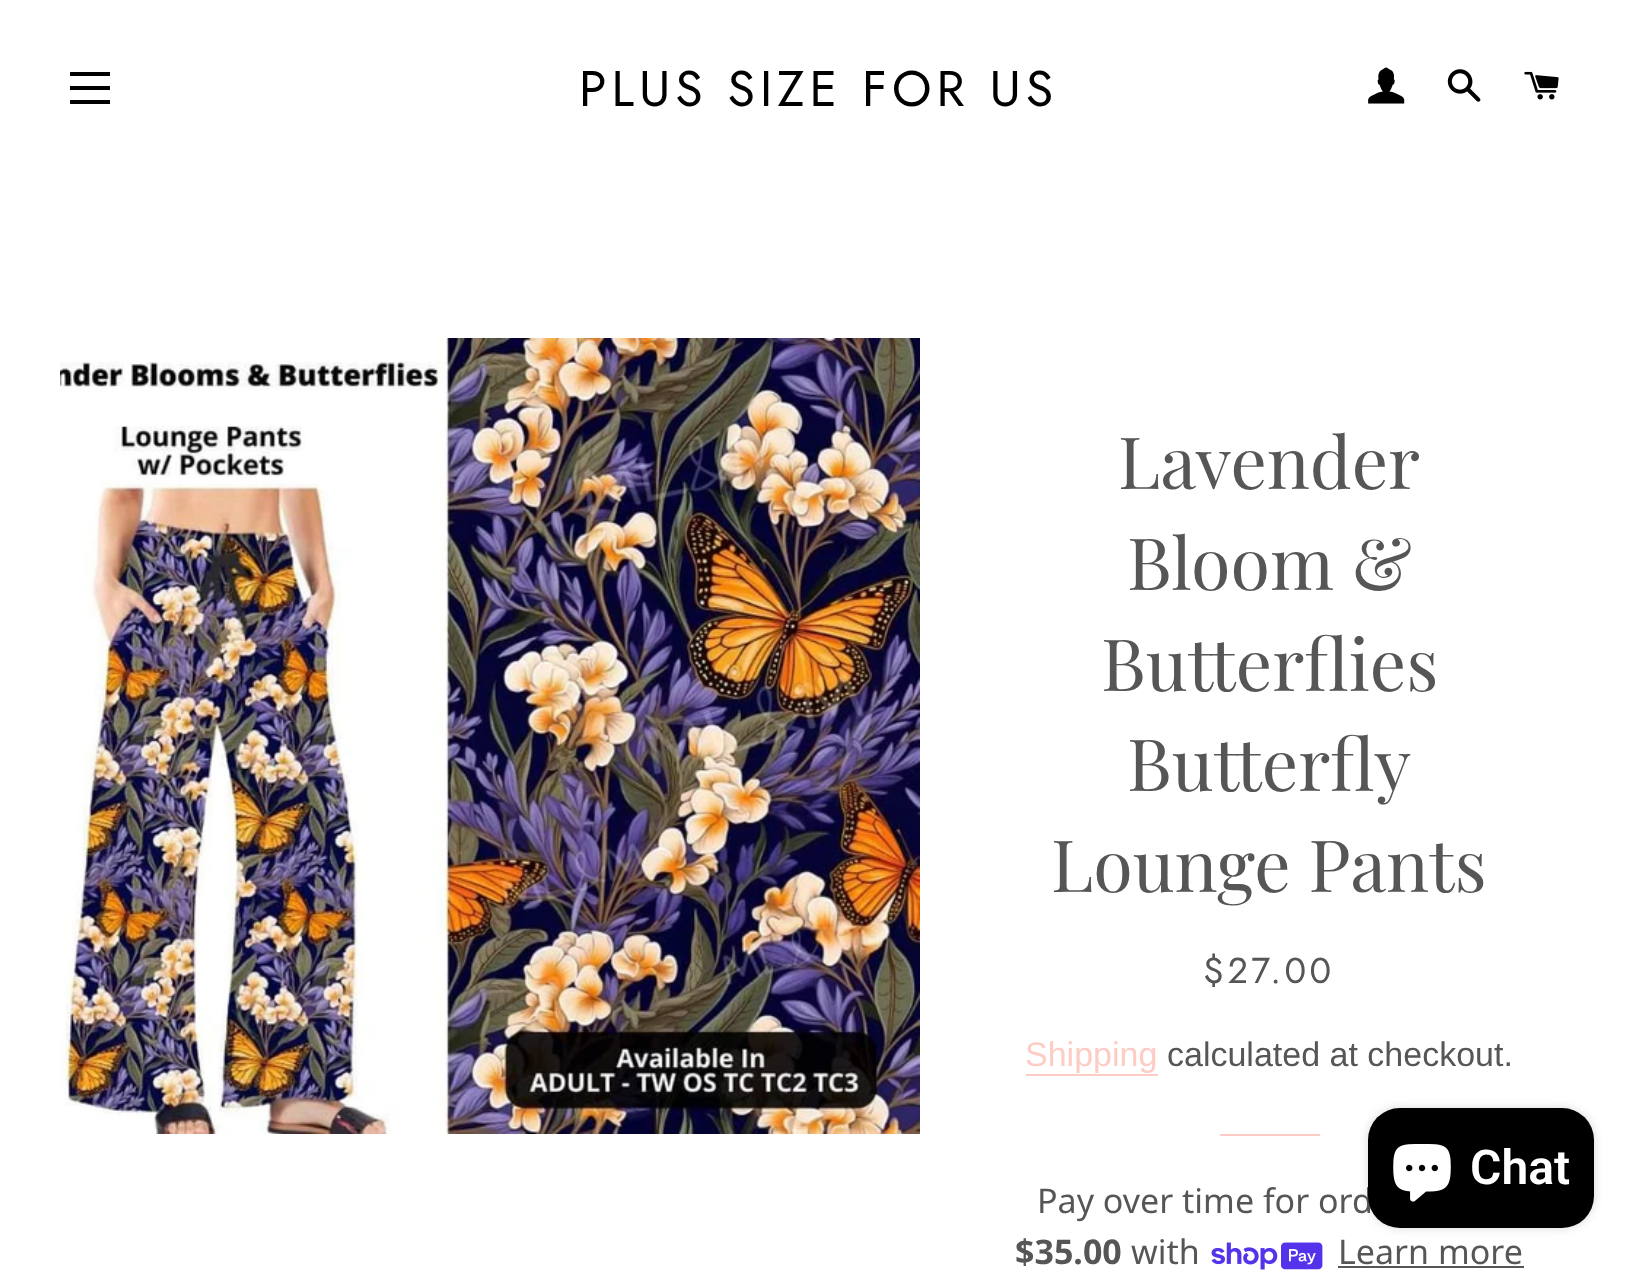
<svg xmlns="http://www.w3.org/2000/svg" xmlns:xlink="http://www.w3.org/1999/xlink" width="1637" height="1270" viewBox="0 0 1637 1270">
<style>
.cls-1{font:50px Jost;letter-spacing:5px;fill:#000000}
.cls-2{font:72px Playfair Display;fill:#565656}
.cls-3{font:36px Jost;letter-spacing:3.5px;fill:#565656}
.cls-4{font:34px Liberation Sans;fill:#fdcdc5}
.cls-5{font:34px Liberation Sans;fill:#565656}
.cls-6{font:34px Noto Sans;fill:#565656}
.cls-7{font:bold 34px Noto Sans;fill:#565656}
.cls-8{font:600 48px Roboto;fill:#ffffff}
</style>
<rect width="100%" height="100%" fill="#ffffff"/>
<rect fill="#000000" x="70" y="72" width="40" height="4"/>
<rect fill="#000000" x="70" y="86" width="40" height="4"/>
<rect fill="#000000" x="70" y="100" width="40" height="4"/>
<image xlink:href="image0.png" x="1368" y="67" width="37" height="37"/>
<image xlink:href="image1.png" x="1447" y="69" width="34" height="33"/>
<image xlink:href="image2.png" x="1524" y="71" width="35" height="29"/>
<image xlink:href="image3.png" x="60" y="338" width="860" height="796"/>
<rect fill="#fdcdc5" x="1026" y="1074" width="132" height="2"/>
<rect fill="#fdcdc5" x="1220" y="1134" width="100" height="2"/>
<image xlink:href="image4.png" x="1211" y="1242" width="112" height="28"/>
<rect fill="#565656" x="1338" y="1266" width="186" height="2"/>
<rect fill="#000000" fill-opacity="0.15" filter="blur(5px)" x="1368" y="1108" width="226" height="120" rx="32"/>
<text class="cls-1" x="579" y="106">PLUS SIZE FOR US</text>
<text class="cls-2" x="1118" y="489">Lavender</text>
<text class="cls-2" x="1127" y="590">Bloom &amp;</text>
<text class="cls-2" x="1101" y="691">Butterflies</text>
<text class="cls-2" x="1127" y="791">Butterfly</text>
<text class="cls-2" x="1051" y="892">Lounge Pants</text>
<text class="cls-3" x="1203" y="983">$27.00</text>
<text class="cls-4" x="1025" y="1066">Shipping</text>
<text class="cls-5" x="1167" y="1066">calculated at checkout.</text>
<text class="cls-6" x="1037" y="1213">Pay over time for ord</text>
<text class="cls-7" x="1015" y="1264">$35.00</text>
<text class="cls-6" x="1131" y="1264">with</text>
<text class="cls-6" x="1338" y="1264">Learn more</text>
<rect fill="#000000" x="1368" y="1108" width="226" height="120" rx="32"/>
<image xlink:href="image5.png" x="1393" y="1144" width="58" height="58"/>
<text class="cls-8" x="1470" y="1184">Chat</text>
</svg>
